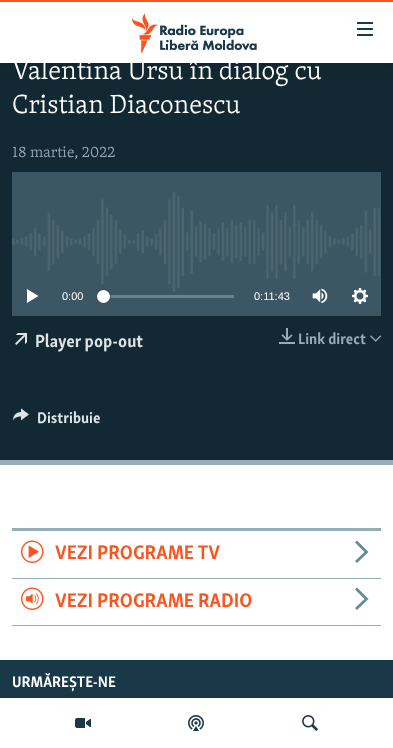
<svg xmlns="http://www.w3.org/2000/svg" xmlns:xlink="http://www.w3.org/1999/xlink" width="393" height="748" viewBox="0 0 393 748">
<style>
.cls-1{font:300 27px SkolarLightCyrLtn;fill:#ffffff}
.cls-2{font:300 15.75px SkolarLightCyrLtn;fill:#95adb9}
.cls-3{font:11px Liberation Sans;fill:#ffffff}
.cls-4{font:bold 18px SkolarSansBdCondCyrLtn;fill:#dce4e8}
.cls-5{font:bold 15.75px SkolarSansBdCondCyrLtn;fill:#95adb9}
.cls-6{font:bold 15.75px SkolarSansBdCondCyrLtn;fill:#dce4e8}
.cls-7{font:bold 20.25px SkolarSansBdCondCyrLtn;fill:#fa5420}
.cls-8{font:bold 15.75px SkolarSansBdCondCyrLtn;fill:#ffffff}
</style>
<rect width="100%" height="100%" fill="#ffffff"/>
<rect fill="#122832" x="0" y="63" width="393" height="397"/>
<rect fill="#000000" fill-opacity="0.1" filter="blur(10px)" x="0" y="0" width="393" height="63"/>
<rect fill="#ffffff" x="0" y="2" width="393" height="61"/>
<rect fill="#fa5420" x="0" y="0" width="393" height="2"/>
<image xlink:href="image0.png" x="132" y="13" width="125" height="40"/>
<image xlink:href="image1.png" x="357" y="22" width="16" height="14"/>
<rect fill="#1a3948" x="0" y="660" width="393" height="38"/>
<rect fill="#000000" fill-opacity="0.1" filter="blur(10px)" x="0" y="698" width="393" height="50"/>
<rect fill="#ffffff" x="0" y="698" width="393" height="50"/>
<image xlink:href="image2.png" x="75" y="718" width="16" height="10"/>
<image xlink:href="image3.png" x="188" y="715" width="16" height="16"/>
<image xlink:href="image4.png" x="302" y="715" width="16" height="16"/>
<rect fill="#95adb9" x="0" y="460" width="393" height="5"/>
<rect fill="#3c5763" x="12" y="172" width="369" height="144"/>
<image xlink:href="image5.png" x="12" y="192" width="368" height="100"/>
<path fill="#ffffff" d="M27 303L38.5 296L27 289Z"/>
<rect fill="#6d818a" x="103" y="295" width="131" height="3"/>
<rect fill="#414144" filter="blur(1.5px)" x="97" y="290" width="13" height="13" rx="6.5"/>
<circle fill="#ffffff" cx="103.5" cy="296.5" r="6.5"/>
<image xlink:href="image6.png" x="312" y="288" width="16" height="16"/>
<image xlink:href="image7.png" x="352" y="288" width="16" height="16"/>
<image xlink:href="image8.png" x="15" y="333" width="12" height="12"/>
<image xlink:href="image9.png" x="279" y="328" width="16" height="16"/>
<image xlink:href="image10.png" x="370" y="335" width="12" height="7"/>
<image xlink:href="image11.png" x="13" y="408" width="16" height="13"/>
<rect fill="#95adb9" x="12" y="528" width="369" height="3"/>
<rect fill="#95adb9" x="12" y="578" width="369" height="1"/>
<image xlink:href="image12.png" x="21" y="540" width="23" height="23"/>
<path fill="#678a9b" d="M357 563L368.5 552L357 540.5L355 542.5L364.5 552L355 561Z"/>
<rect fill="#95adb9" x="12" y="625" width="369" height="1"/>
<image xlink:href="image13.png" x="21" y="587" width="23" height="23"/>
<path fill="#678a9b" d="M357 610L368.5 599L357 587.5L355 589.5L364.5 599L355 608Z"/>
<text class="cls-1"><tspan x="12" y="79">Valentina Ursu în dialog cu</tspan><tspan x="12" y="113">Cristian Diaconescu</tspan></text>
<text class="cls-2" x="12" y="157">18 martie, 2022</text>
<text class="cls-3" x="62" y="300">0:00</text>
<text class="cls-3" x="254" y="300">0:11:43</text>
<text class="cls-4" x="35" y="347">Player pop-out</text>
<text class="cls-5" x="298" y="344">Link direct</text>
<text class="cls-6" x="37" y="423">Distribuie</text>
<text class="cls-7" x="55" y="559">VEZI PROGRAME TV</text>
<text class="cls-7" x="55" y="607">VEZI PROGRAME RADIO</text>
<text class="cls-8" x="12" y="687">URMĂREȘTE-NE</text>
</svg>
